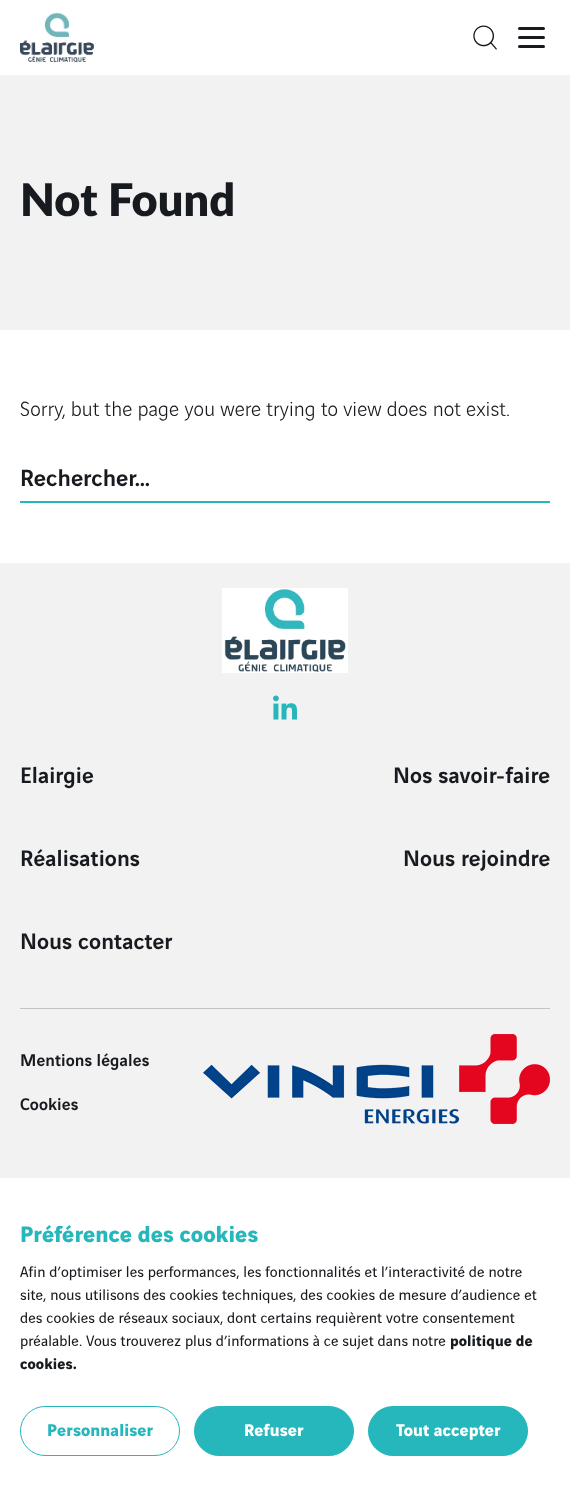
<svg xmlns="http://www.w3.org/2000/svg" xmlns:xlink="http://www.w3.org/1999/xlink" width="570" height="1493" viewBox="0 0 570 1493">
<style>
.cls-1{font:900 45px Lato;letter-spacing:0.1px;fill:#171a1e}
.cls-2{font:300 22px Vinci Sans;letter-spacing:0.1px;fill:#171a1e}
.cls-3{font:500 25px Vinci Sans;fill:#171a1e}
.cls-4{font:500 24px Vinci Sans;letter-spacing:0.1px;fill:#171a1e}
.cls-5{font:500 18px Vinci Sans;letter-spacing:0.1px;fill:#171a1e}
.cls-6{font:bold 24px Vinci Sans;letter-spacing:0.1px;fill:#25b7bc}
.cls-7{font:16px Vinci Sans;letter-spacing:0.1px;fill:#171a1e}
.cls-8{font:bold 16px Vinci Sans;letter-spacing:0.1px;fill:#171a1e}
.cls-9{font:bold 18px Vinci Sans;letter-spacing:0.1px;fill:#25b7bc}
.cls-10{font:bold 18px Vinci Sans;letter-spacing:0.1px;fill:#ffffff}
</style>
<rect width="100%" height="100%" fill="#ffffff"/>
<image xlink:href="image0.png" x="20" y="12" width="74" height="51"/>
<image xlink:href="image1.png" x="473" y="25" width="24" height="25"/>
<rect fill="#171a1e" x="518" y="27" width="27" height="3" rx="1.5"/>
<rect fill="#171a1e" x="518" y="36" width="27" height="3" rx="1.5"/>
<rect fill="#171a1e" x="518" y="45" width="27" height="3" rx="1.5"/>
<rect fill="#f2f2f2" x="0" y="75" width="570" height="255"/>
<rect fill="#25b7bc" x="20" y="501" width="530" height="2"/>
<rect fill="#f2f2f2" x="0" y="563" width="570" height="615"/>
<rect fill="#c4c4c4" x="20" y="1008" width="530" height="1"/>
<image xlink:href="image2.png" x="222" y="588" width="126" height="85"/>
<image xlink:href="image3.png" x="273" y="695" width="24" height="25"/>
<image xlink:href="image4.png" x="203" y="1034" width="347" height="90"/>
<rect fill="none" stroke="#25b7bc" x="20.5" y="1406.5" width="159" height="49" rx="24.5"/>
<rect fill="#25b7bc" stroke="#25b7bc" x="194.5" y="1406.5" width="159" height="49" rx="24.5"/>
<rect fill="#25b7bc" stroke="#25b7bc" x="368.5" y="1406.5" width="159" height="49" rx="24.5"/>
<text class="cls-1" x="20" y="216">Not Found</text>
<text class="cls-2" x="20" y="416">Sorry, but the page you were trying to view does not exist.</text>
<text class="cls-3" x="20" y="486">Rechercher…</text>
<text class="cls-4" x="20" y="783">Elairgie</text>
<text class="cls-4" x="393" y="783">Nos savoir-faire</text>
<text class="cls-4" x="20" y="866">Réalisations</text>
<text class="cls-4" x="403" y="866">Nous rejoindre</text>
<text class="cls-4" x="20" y="949">Nous contacter</text>
<text class="cls-5" x="20" y="1066">Mentions légales</text>
<text class="cls-5" x="20" y="1110">Cookies</text>
<text class="cls-6" x="20" y="1242">Préférence des cookies</text>
<text class="cls-7"><tspan x="20" y="1277">Afin d’optimiser les performances, les fonctionnalités et l’interactivité de notre</tspan><tspan x="20" y="1300">site, nous utilisons des cookies techniques, des cookies de mesure d’audience et</tspan><tspan x="20" y="1323">des cookies de réseaux sociaux, dont certains requièrent votre consentement</tspan><tspan x="20" y="1346">préalable. Vous trouverez plus d’informations à ce sujet dans notre</tspan></text>
<text class="cls-8" x="450" y="1346">politique de</text>
<text class="cls-8" x="20" y="1369">cookies.</text>
<text class="cls-9" x="47" y="1436">Personnaliser</text>
<text class="cls-10" x="244" y="1436">Refuser</text>
<text class="cls-10" x="396" y="1436">Tout accepter</text>
</svg>
